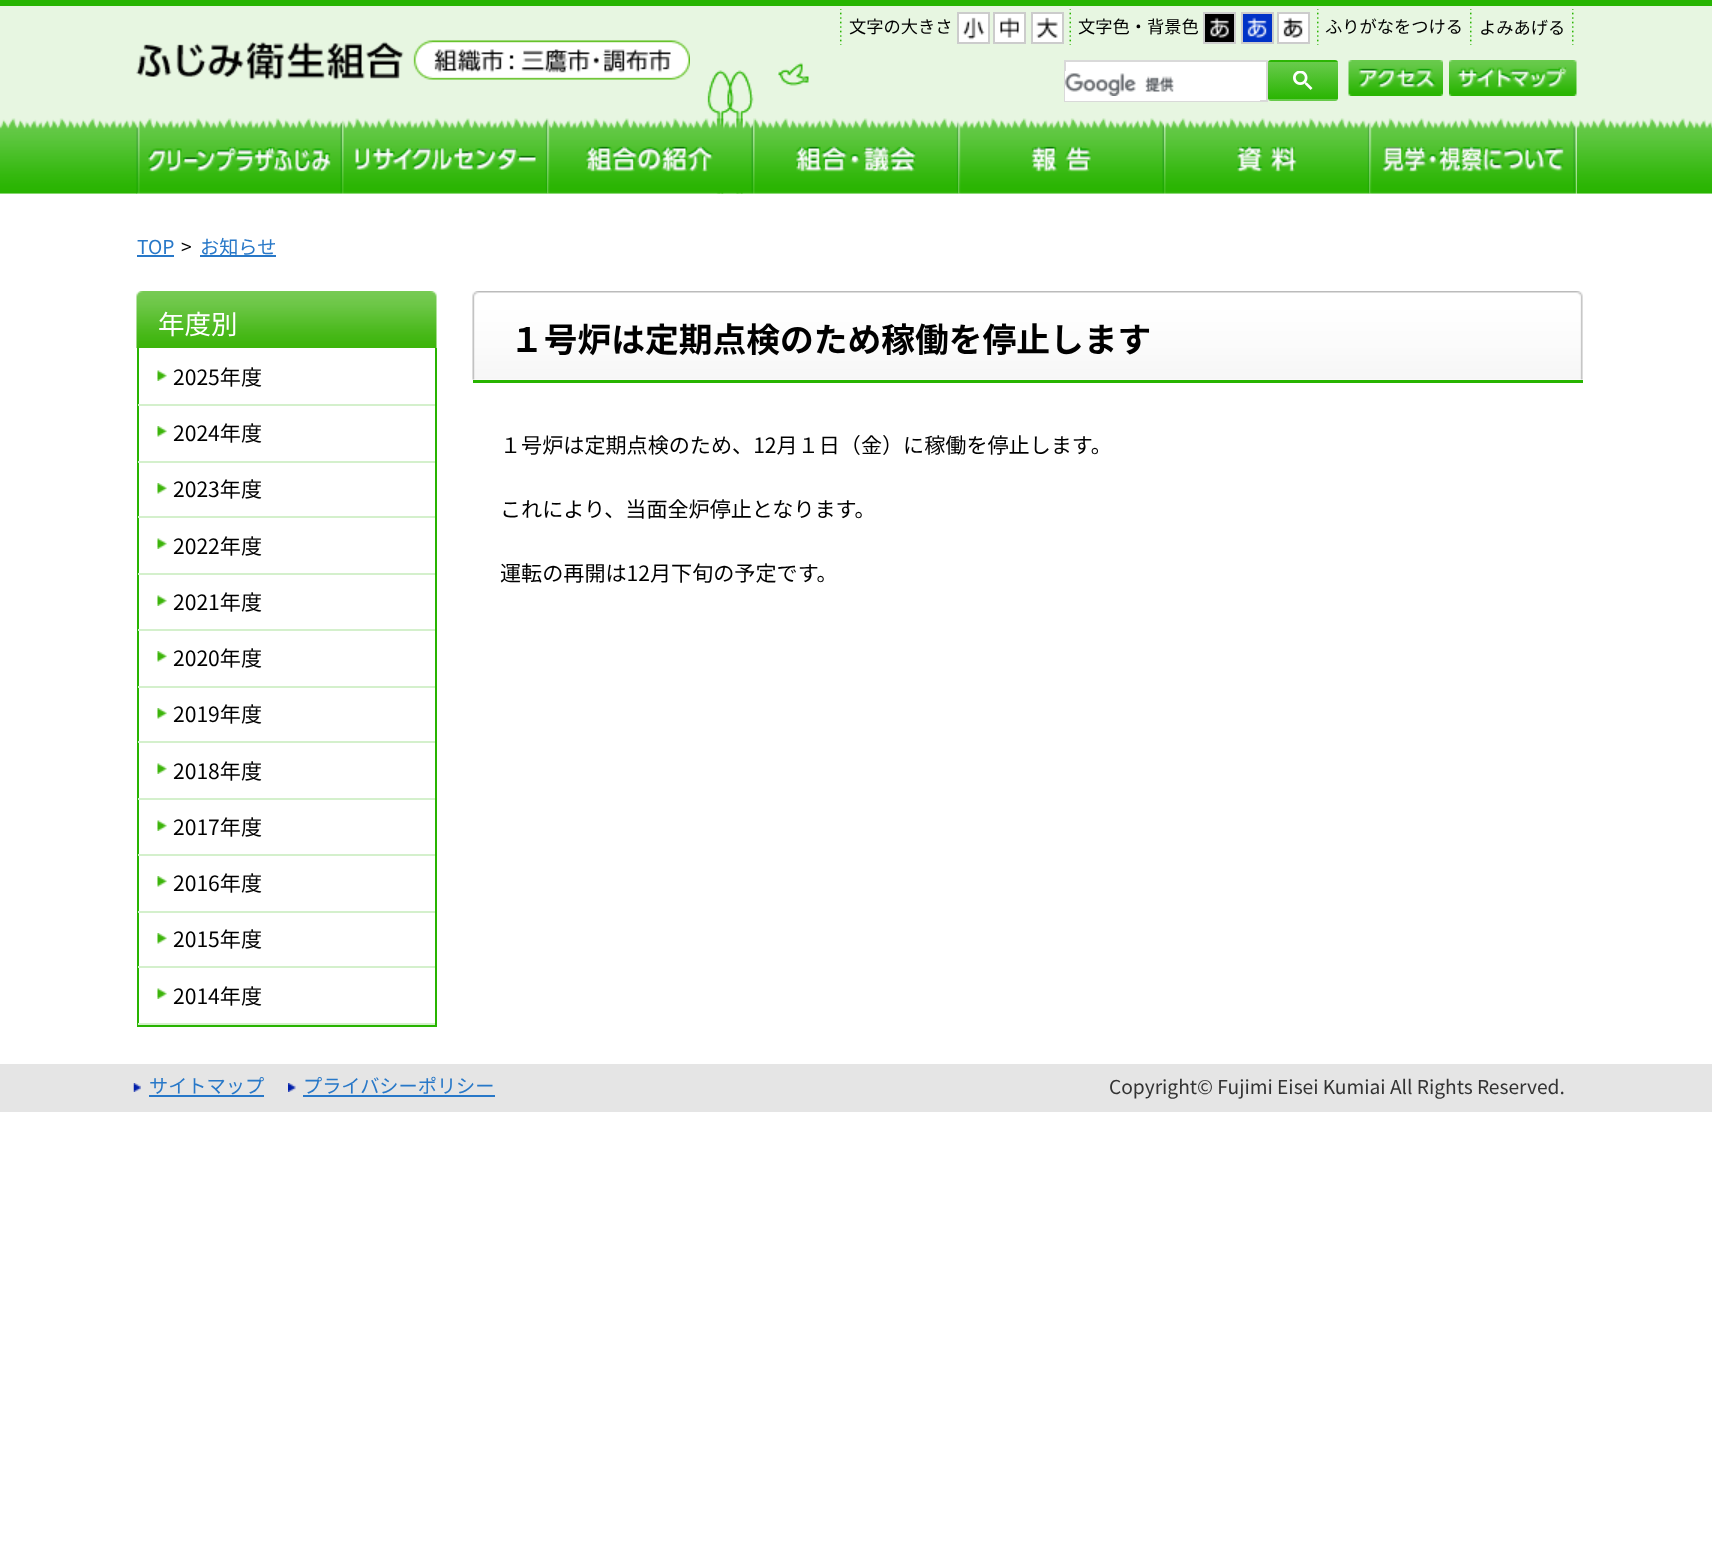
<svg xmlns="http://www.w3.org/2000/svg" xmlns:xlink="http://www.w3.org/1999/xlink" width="1712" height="1564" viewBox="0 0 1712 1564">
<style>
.cls-1{font:17.25px Noto Sans JP;fill:#000000}
.cls-2{font:19.2px Noto Sans JP;fill:#2878c8}
.cls-3{font:19.2px Noto Sans JP;fill:#000000}
.cls-4{font:26.5px Noto Sans JP;fill:#ffffff}
.cls-5{font:21.1px Noto Sans JP;fill:#000000}
.cls-6{font:bold 33.75px Noto Sans JP;fill:#000000}
.cls-7{font:19.2px Noto Sans JP;fill:#333333}
</style>
<defs>
<clipPath id="clip1"><rect x="1268" y="60" width="70" height="41" rx="3"/></clipPath>
<linearGradient id="g1" gradientUnits="userSpaceOnUse" x1="1303" y1="24" x2="1303" y2="62"><stop offset="0" stop-color="#69cb4d"/><stop offset="1" stop-color="#2ab502"/></linearGradient>
<linearGradient id="g2" gradientUnits="userSpaceOnUse" x1="1303" y1="62" x2="1303" y2="99"><stop offset="0" stop-color="#69cb4d"/><stop offset="1" stop-color="#2ab502"/></linearGradient>
<linearGradient id="g3" gradientUnits="userSpaceOnUse" x1="1303" y1="99" x2="1303" y2="137"><stop offset="0" stop-color="#69cb4d"/><stop offset="1" stop-color="#2ab502"/></linearGradient>
</defs>
<rect width="100%" height="100%" fill="#ffffff"/>
<rect fill="#e7f6e1" x="0" y="6" width="1712" height="188"/>
<image xlink:href="image0.png" x="0" y="118" width="1712" height="76"/>
<rect fill="#27b501" x="0" y="0" width="1712" height="6"/>
<rect fill="#e7f6e1" x="137" y="118" width="1440" height="76"/>
<image xlink:href="image1.png" x="707" y="62" width="102" height="132"/>
<image xlink:href="image2.png" x="840" y="9" width="2" height="36"/>
<image xlink:href="image3.png" x="959" y="14" width="29" height="28"/>
<rect fill="none" stroke="#cccccc" stroke-width="2" x="958" y="13" width="31" height="30"/>
<image xlink:href="image4.png" x="995" y="14" width="29" height="28"/>
<rect fill="none" stroke="#cccccc" stroke-width="2" x="994" y="13" width="31" height="30"/>
<image xlink:href="image5.png" x="1033" y="14" width="29" height="28"/>
<rect fill="none" stroke="#cccccc" stroke-width="2" x="1032" y="13" width="31" height="30"/>
<image xlink:href="image6.png" x="1069" y="9" width="2" height="36"/>
<image xlink:href="image7.png" x="1205" y="14" width="29" height="28"/>
<rect fill="none" stroke="#cccccc" stroke-width="2" x="1204" y="13" width="31" height="30"/>
<image xlink:href="image8.png" x="1243" y="14" width="29" height="28"/>
<rect fill="none" stroke="#cccccc" stroke-width="2" x="1242" y="13" width="31" height="30"/>
<image xlink:href="image9.png" x="1279" y="14" width="29" height="28"/>
<rect fill="none" stroke="#cccccc" stroke-width="2" x="1278" y="13" width="31" height="30"/>
<image xlink:href="image2.png" x="1317" y="9" width="2" height="36"/>
<image xlink:href="image2.png" x="1470" y="9" width="2" height="36"/>
<image xlink:href="image2.png" x="1572" y="9" width="2" height="36"/>
<image xlink:href="image10.png" x="136" y="40" width="554" height="40"/>
<rect fill="#ffffff" stroke="#d9d9d9" stroke-width="2" x="1065" y="61" width="202" height="40"/>
<rect fill="#ffffff" x="1065" y="71" width="195" height="30"/>
<image xlink:href="image11.png" x="1065" y="73" width="109" height="23"/>
<g clip-path="url(#clip1)">
<rect fill="url(#g1)" x="1268" y="60" width="70" height="2"/>
<rect fill="url(#g2)" x="1268" y="62" width="70" height="37"/>
<rect fill="url(#g3)" x="1268" y="99" width="70" height="2"/>
</g>
<image xlink:href="image12.png" x="1293" y="71" width="20" height="19"/>
<image xlink:href="image13.png" x="1348" y="60" width="95" height="36"/>
<image xlink:href="image14.png" x="1449" y="60" width="128" height="36"/>
<image xlink:href="image15.png" x="136" y="118" width="206" height="76"/>
<image xlink:href="image16.png" x="342" y="118" width="206" height="76"/>
<image xlink:href="image17.png" x="547" y="118" width="206" height="76"/>
<image xlink:href="image18.png" x="753" y="118" width="206" height="76"/>
<image xlink:href="image19.png" x="958" y="118" width="206" height="76"/>
<image xlink:href="image20.png" x="1164" y="118" width="206" height="76"/>
<image xlink:href="image21.png" x="1369" y="118" width="208" height="76"/>
<rect fill="#2878c8" x="137" y="255" width="37" height="2"/>
<rect fill="#2878c8" x="200" y="255" width="76" height="2"/>
<image xlink:href="image22.png" x="136" y="291" width="301" height="57"/>
<rect fill="#28b400" x="435" y="348" width="2" height="678"/>
<rect fill="#28b400" x="137" y="1025" width="300" height="2"/>
<rect fill="#28b400" x="137" y="348" width="2" height="678"/>
<image xlink:href="image23.png" x="157" y="370" width="10" height="11"/>
<rect fill="#d4f0cc" x="138" y="404" width="297" height="2"/>
<image xlink:href="image24.png" x="157" y="426" width="10" height="11"/>
<rect fill="#d4f0cc" x="138" y="461" width="297" height="2"/>
<image xlink:href="image24.png" x="157" y="483" width="10" height="11"/>
<rect fill="#d4f0cc" x="138" y="516" width="297" height="2"/>
<image xlink:href="image23.png" x="157" y="538" width="10" height="11"/>
<rect fill="#d4f0cc" x="138" y="573" width="297" height="2"/>
<image xlink:href="image23.png" x="157" y="595" width="10" height="11"/>
<rect fill="#d4f0cc" x="138" y="629" width="297" height="2"/>
<image xlink:href="image24.png" x="157" y="651" width="10" height="11"/>
<rect fill="#d4f0cc" x="138" y="686" width="297" height="2"/>
<image xlink:href="image24.png" x="157" y="708" width="10" height="11"/>
<rect fill="#d4f0cc" x="138" y="741" width="297" height="2"/>
<image xlink:href="image23.png" x="157" y="763" width="10" height="11"/>
<rect fill="#d4f0cc" x="138" y="798" width="297" height="2"/>
<image xlink:href="image23.png" x="157" y="820" width="10" height="11"/>
<rect fill="#d4f0cc" x="138" y="854" width="297" height="2"/>
<image xlink:href="image24.png" x="157" y="876" width="10" height="11"/>
<rect fill="#d4f0cc" x="138" y="911" width="297" height="2"/>
<image xlink:href="image24.png" x="157" y="933" width="10" height="11"/>
<rect fill="#d4f0cc" x="138" y="966" width="297" height="2"/>
<image xlink:href="image23.png" x="157" y="988" width="10" height="11"/>
<rect fill="#d4f0cc" x="138" y="1023" width="297" height="2"/>
<image xlink:href="image25.png" x="472" y="291" width="1111" height="6"/>
<rect fill="#28b400" x="473" y="380" width="1110" height="3"/>
<image xlink:href="image26.png" x="472" y="297" width="1111" height="83"/>
<rect fill="#e5e5e5" x="0" y="1064" width="1712" height="48"/>
<image xlink:href="image27.png" x="133" y="1083" width="8" height="9"/>
<rect fill="#2878c8" x="149" y="1095" width="115" height="2"/>
<image xlink:href="image28.png" x="288" y="1083" width="8" height="9"/>
<rect fill="#2878c8" x="303" y="1095" width="192" height="2"/>
<text class="cls-1" x="849" y="33">文字の大きさ</text>
<text class="cls-1" x="1078" y="33">文字色・背景色</text>
<text class="cls-1" x="1325" y="33">ふりがなをつける</text>
<text class="cls-1" x="1479" y="34">よみあげる</text>
<text class="cls-2" x="137" y="254">TOP</text>
<text class="cls-3" x="181" y="254">&gt;</text>
<text class="cls-2" x="200" y="254">お知らせ</text>
<text class="cls-4" x="158" y="334">年度別</text>
<text class="cls-5" x="173" y="385">2025年度</text>
<text class="cls-5" x="173" y="441">2024年度</text>
<text class="cls-5" x="173" y="497">2023年度</text>
<text class="cls-5" x="173" y="554">2022年度</text>
<text class="cls-5" x="173" y="610">2021年度</text>
<text class="cls-5" x="173" y="666">2020年度</text>
<text class="cls-5" x="173" y="722">2019年度</text>
<text class="cls-5" x="173" y="779">2018年度</text>
<text class="cls-5" x="173" y="835">2017年度</text>
<text class="cls-5" x="173" y="891">2016年度</text>
<text class="cls-5" x="173" y="947">2015年度</text>
<text class="cls-5" x="173" y="1004">2014年度</text>
<text class="cls-6" x="510" y="352">１号炉は定期点検のため稼働を停止します</text>
<text class="cls-5" x="500" y="453">１号炉は定期点検のため、12月１日（金）に稼働を停止します。</text>
<text class="cls-5" x="500" y="517">これにより、当面全炉停止となります。</text>
<text class="cls-5" x="500" y="581">運転の再開は12月下旬の予定です。</text>
<text class="cls-2" x="149" y="1093">サイトマップ</text>
<text class="cls-2" x="303" y="1093">プライバシーポリシー</text>
<text class="cls-7" x="1109" y="1094">Copyright© Fujimi Eisei Kumiai All Rights Reserved.</text>
</svg>
